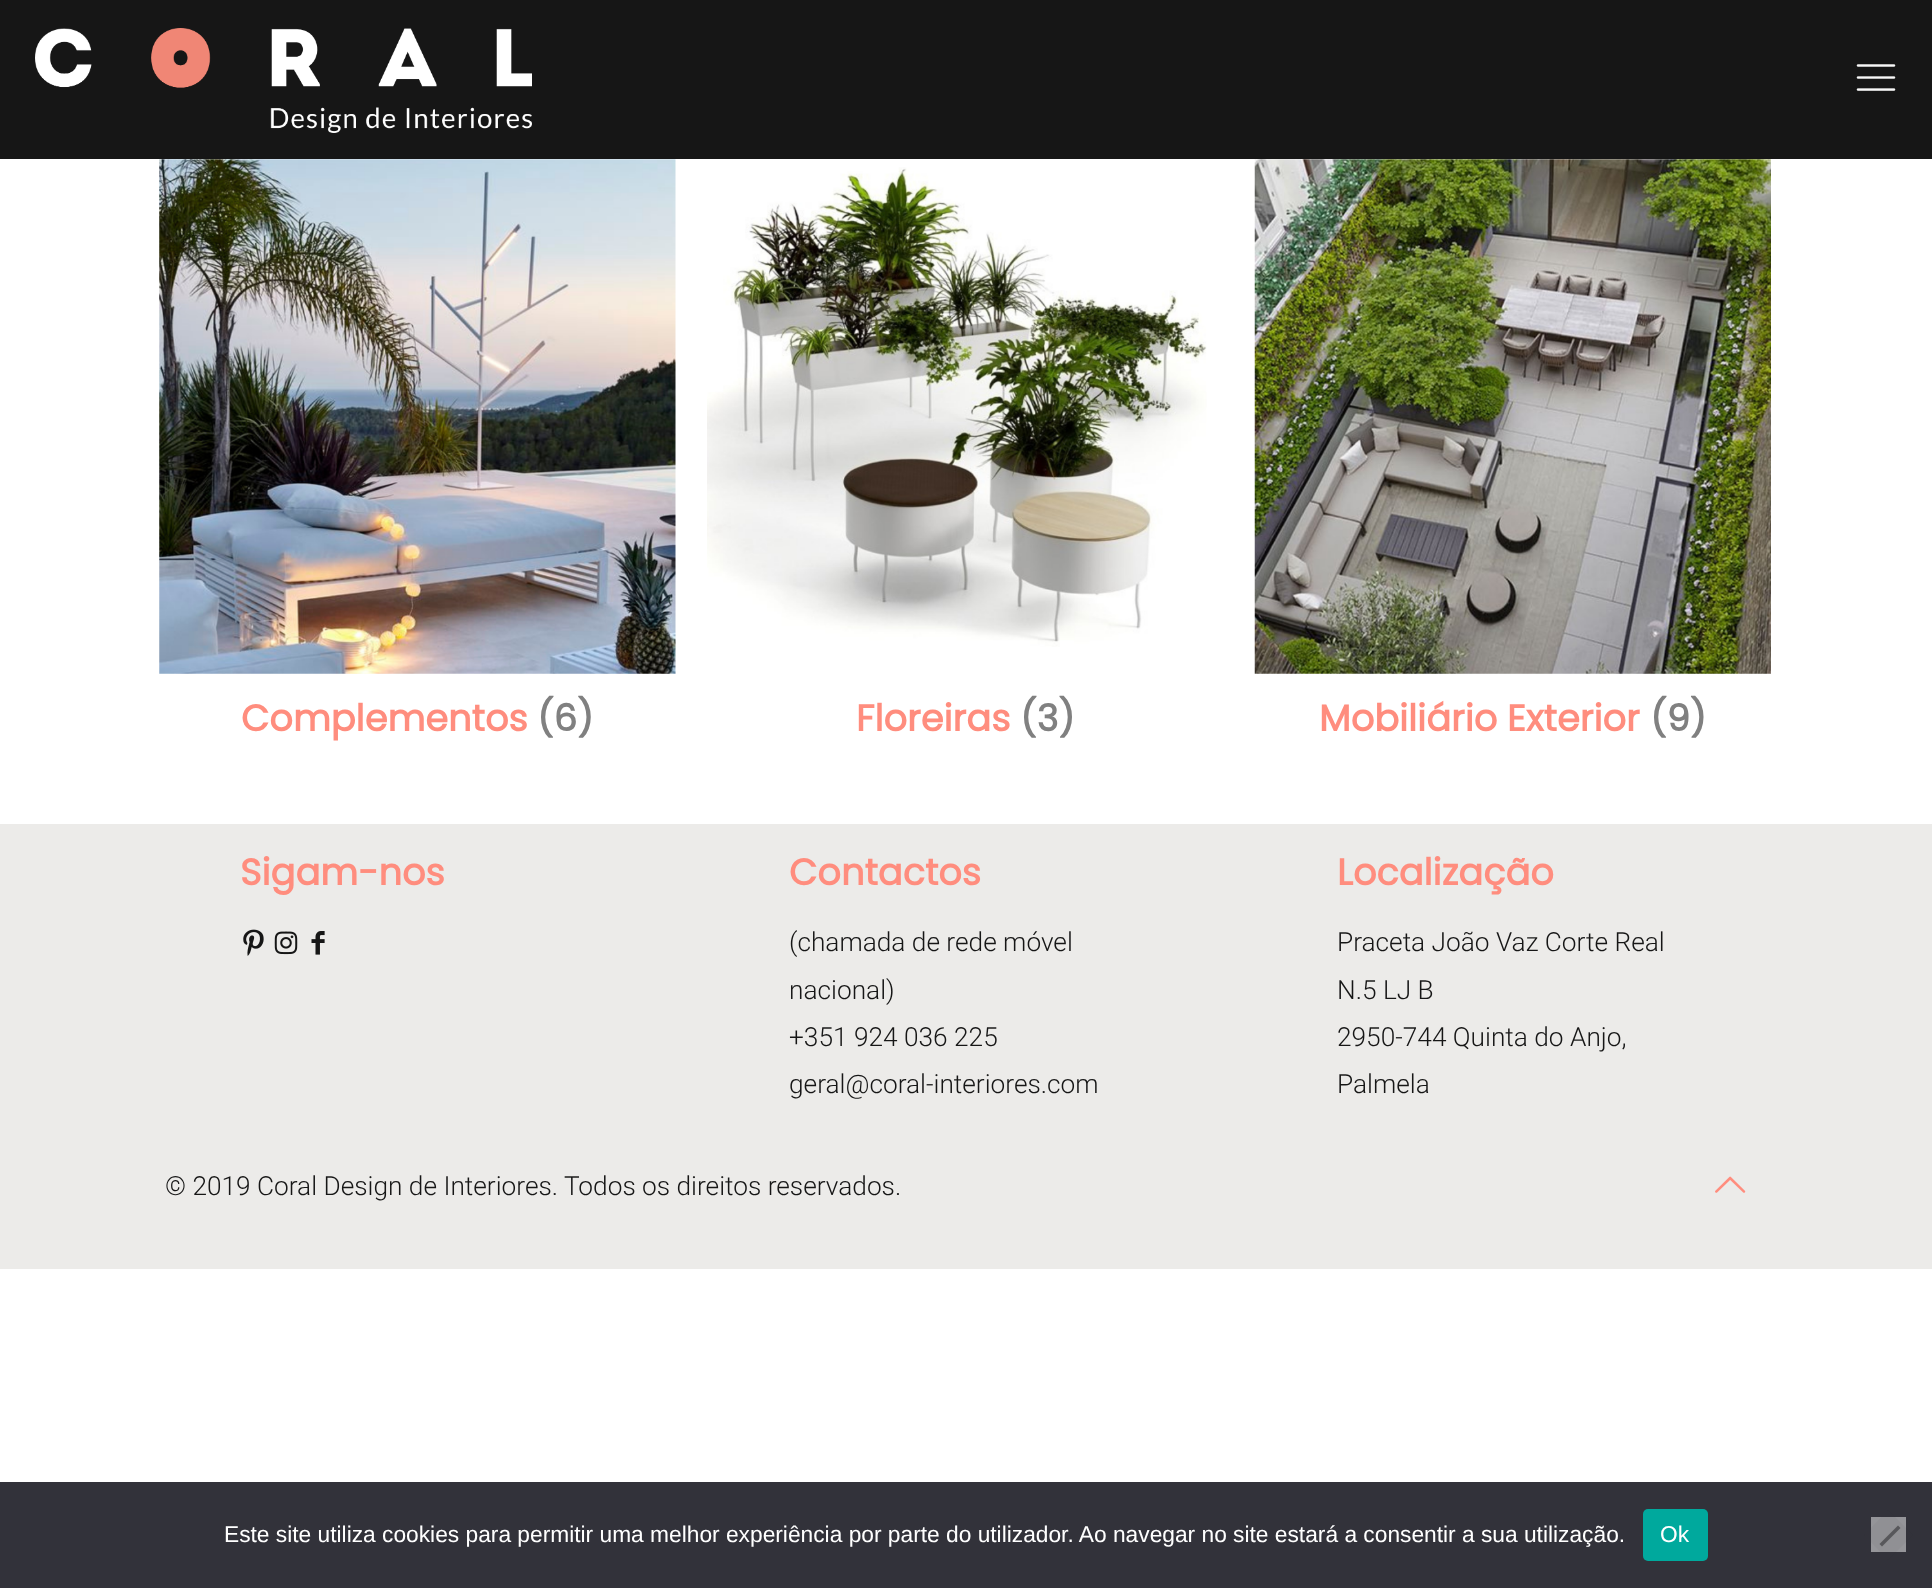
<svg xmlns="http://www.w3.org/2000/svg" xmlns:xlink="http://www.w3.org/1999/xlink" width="1932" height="1588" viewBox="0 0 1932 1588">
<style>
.cls-1{font:bold 36.75px Poppins;fill:#ff8d7e}
.cls-2{font:bold 36.75px Poppins;fill:#808080}
.cls-3{font:300 26.25px Roboto;fill:#161616}
.cls-4{font:22.75px Liberation Sans;fill:#ffffff}
</style>
<rect width="100%" height="100%" fill="#ffffff"/>
<rect fill="#161616" x="0" y="0" width="1932" height="159"/>
<image xlink:href="image0.png" x="35" y="28" width="497" height="105"/>
<image xlink:href="image1.png" x="1856" y="64" width="40" height="27"/>
<image xlink:href="image2.png" x="159" y="159" width="517" height="515"/>
<image xlink:href="image3.png" x="707" y="167" width="500" height="480"/>
<image xlink:href="image4.png" x="1254" y="159" width="517" height="515"/>
<rect fill="#ecebe9" x="0" y="824" width="1932" height="445"/>
<image xlink:href="image5.png" x="243" y="929" width="21" height="27"/>
<image xlink:href="image6.png" x="274" y="931" width="24" height="24"/>
<image xlink:href="image7.png" x="311" y="931" width="14" height="24"/>
<image xlink:href="image8.png" x="1715" y="1176" width="31" height="17"/>
<rect fill="#32323a" x="0" y="1482" width="1932" height="106"/>
<rect fill="#00a99d" x="1643" y="1509" width="65" height="52" rx="5"/>
<rect fill="#959599" x="1871" y="1517" width="35" height="35"/>
<path fill="#59595d" d="M1898 1525.5L1900.5 1528L1882 1546.5L1879.5 1544Z"/>
<path fill="#32323a" fill-opacity="0.05" d="M1864 1535L1888 1510L1913 1535L1888 1560Z"/>
<text class="cls-1" x="241" y="731">Complementos</text>
<text class="cls-2" x="537" y="731">(6)</text>
<text class="cls-1" x="856" y="731">Floreiras</text>
<text class="cls-2" x="1020" y="731">(3)</text>
<text class="cls-1" x="1319" y="731">Mobiliário Exterior</text>
<text class="cls-2" x="1650" y="731">(9)</text>
<text class="cls-1" x="240" y="885">Sigam-nos</text>
<text class="cls-1" x="789" y="885">Contactos</text>
<text class="cls-3"><tspan x="789" y="951">(chamada de rede móvel</tspan><tspan x="789" y="999">nacional)</tspan><tspan x="789" y="1046">+351 924 036 225</tspan><tspan x="789" y="1093">geral@coral-interiores.com</tspan></text>
<text class="cls-1" x="1337" y="885">Localização</text>
<text class="cls-3"><tspan x="1337" y="951">Praceta João Vaz Corte Real</tspan><tspan x="1337" y="999">N.5 LJ B</tspan><tspan x="1337" y="1046">2950-744 Quinta do Anjo,</tspan><tspan x="1337" y="1093">Palmela</tspan></text>
<text class="cls-3" x="165" y="1195">© 2019 Coral Design de Interiores. Todos os direitos reservados.</text>
<text class="cls-4" x="224" y="1542">Este site utiliza cookies para permitir uma melhor experiência por parte do utilizador. Ao navegar no site estará a consentir a sua utilização.</text>
<text class="cls-4" x="1660" y="1542">Ok</text>
</svg>
